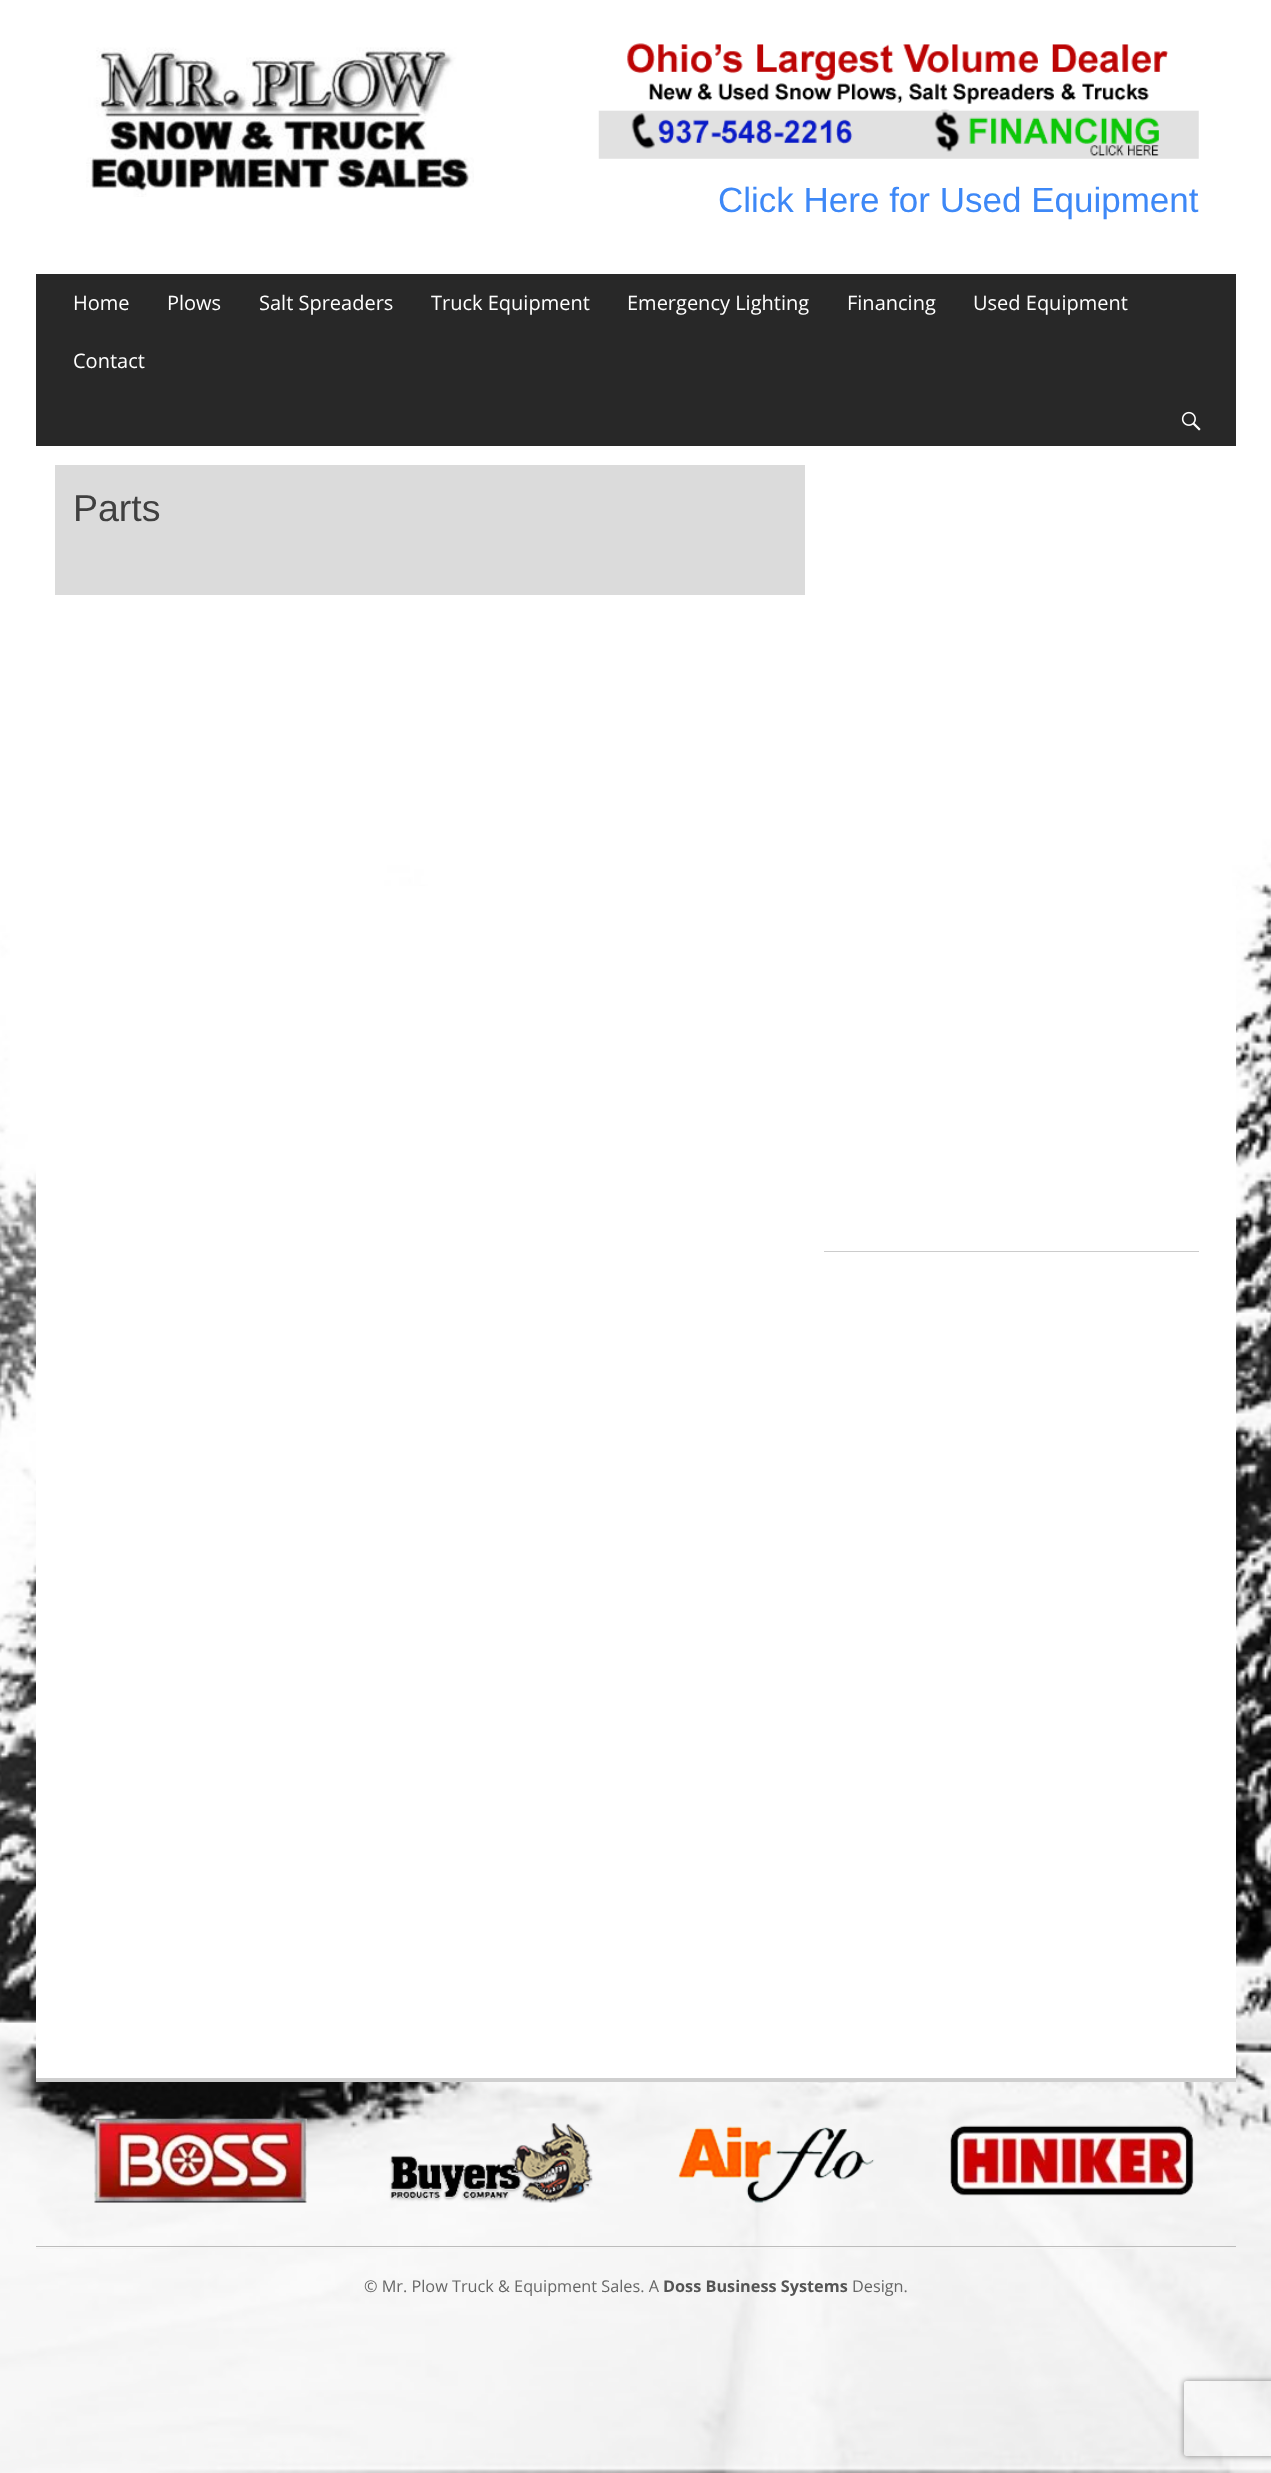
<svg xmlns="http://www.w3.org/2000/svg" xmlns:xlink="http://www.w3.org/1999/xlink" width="1271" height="2473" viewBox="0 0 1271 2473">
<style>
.cls-1{font:35px Liberation Sans;fill:#3d88f7}
.cls-2{font:20px Open Sans;fill:#ffffff}
.cls-3{font:37.5px Liberation Sans;fill:#404040}
.cls-4{font:16.25px Open Sans;fill:#666666}
.cls-5{font:bold 16.25px Open Sans;fill:#555555}
</style>
<defs>
<clipPath id="clip1"><path d="M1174 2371H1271V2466H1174ZM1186.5 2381H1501.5C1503 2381 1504 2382 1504 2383.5V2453.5C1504 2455 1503 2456 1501.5 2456H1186.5C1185 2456 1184 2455 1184 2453.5V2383.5C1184 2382 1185 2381 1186.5 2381Z" clip-rule="evenodd"/></clipPath>
</defs>
<rect width="100%" height="100%" fill="#ffffff"/>
<image xlink:href="image0.png" x="0" y="0" width="1271" height="2473"/>
<image xlink:href="image1.png" x="86" y="47" width="388" height="150"/>
<image xlink:href="image2.png" x="598" y="43" width="601" height="116"/>
<rect fill="#282828" x="36" y="274" width="1200" height="172"/>
<image xlink:href="image3.png" x="1181" y="411" width="20" height="20"/>
<rect fill="#ffffff" x="36" y="886" width="1200" height="1192"/>
<rect fill="#dbdbdb" x="55" y="465" width="750" height="130"/>
<rect fill="#cccccc" x="824" y="1251" width="375" height="1"/>
<rect fill="#cfcfcf" x="36" y="2078" width="1200" height="4"/>
<rect fill="#bcbcbc" x="36" y="2246" width="1200" height="1"/>
<image xlink:href="image4.png" x="94" y="2118" width="213" height="85"/>
<image xlink:href="image5.png" x="389" y="2123" width="204" height="80"/>
<image xlink:href="image6.png" x="678" y="2126" width="197" height="77"/>
<image xlink:href="image7.png" x="950" y="2125" width="244" height="71"/>
<rect fill="#f4f4f4" x="36" y="2248" width="1098" height="1"/>
<g clip-path="url(#clip1)">
<rect fill="#808080" filter="blur(3px)" x="1184" y="2381" width="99" height="75" rx="2.5"/>
</g>
<text class="cls-1" x="718" y="212">Click Here for Used Equipment</text>
<text class="cls-2" x="73" y="310">Home</text>
<text class="cls-2" x="167" y="310">Plows</text>
<text class="cls-2" x="259" y="310">Salt Spreaders</text>
<text class="cls-2" x="431" y="310">Truck Equipment</text>
<text class="cls-2" x="627" y="310">Emergency Lighting</text>
<text class="cls-2" x="847" y="310">Financing</text>
<text class="cls-2" x="973" y="310">Used Equipment</text>
<text class="cls-2" x="73" y="368">Contact</text>
<text class="cls-3" x="73" y="521">Parts</text>
<text class="cls-4" x="364" y="2292">© Mr. Plow Truck &amp; Equipment Sales. A</text>
<text class="cls-5" x="663" y="2292">Doss Business Systems</text>
<text class="cls-4" x="852" y="2292">Design.</text>
</svg>
